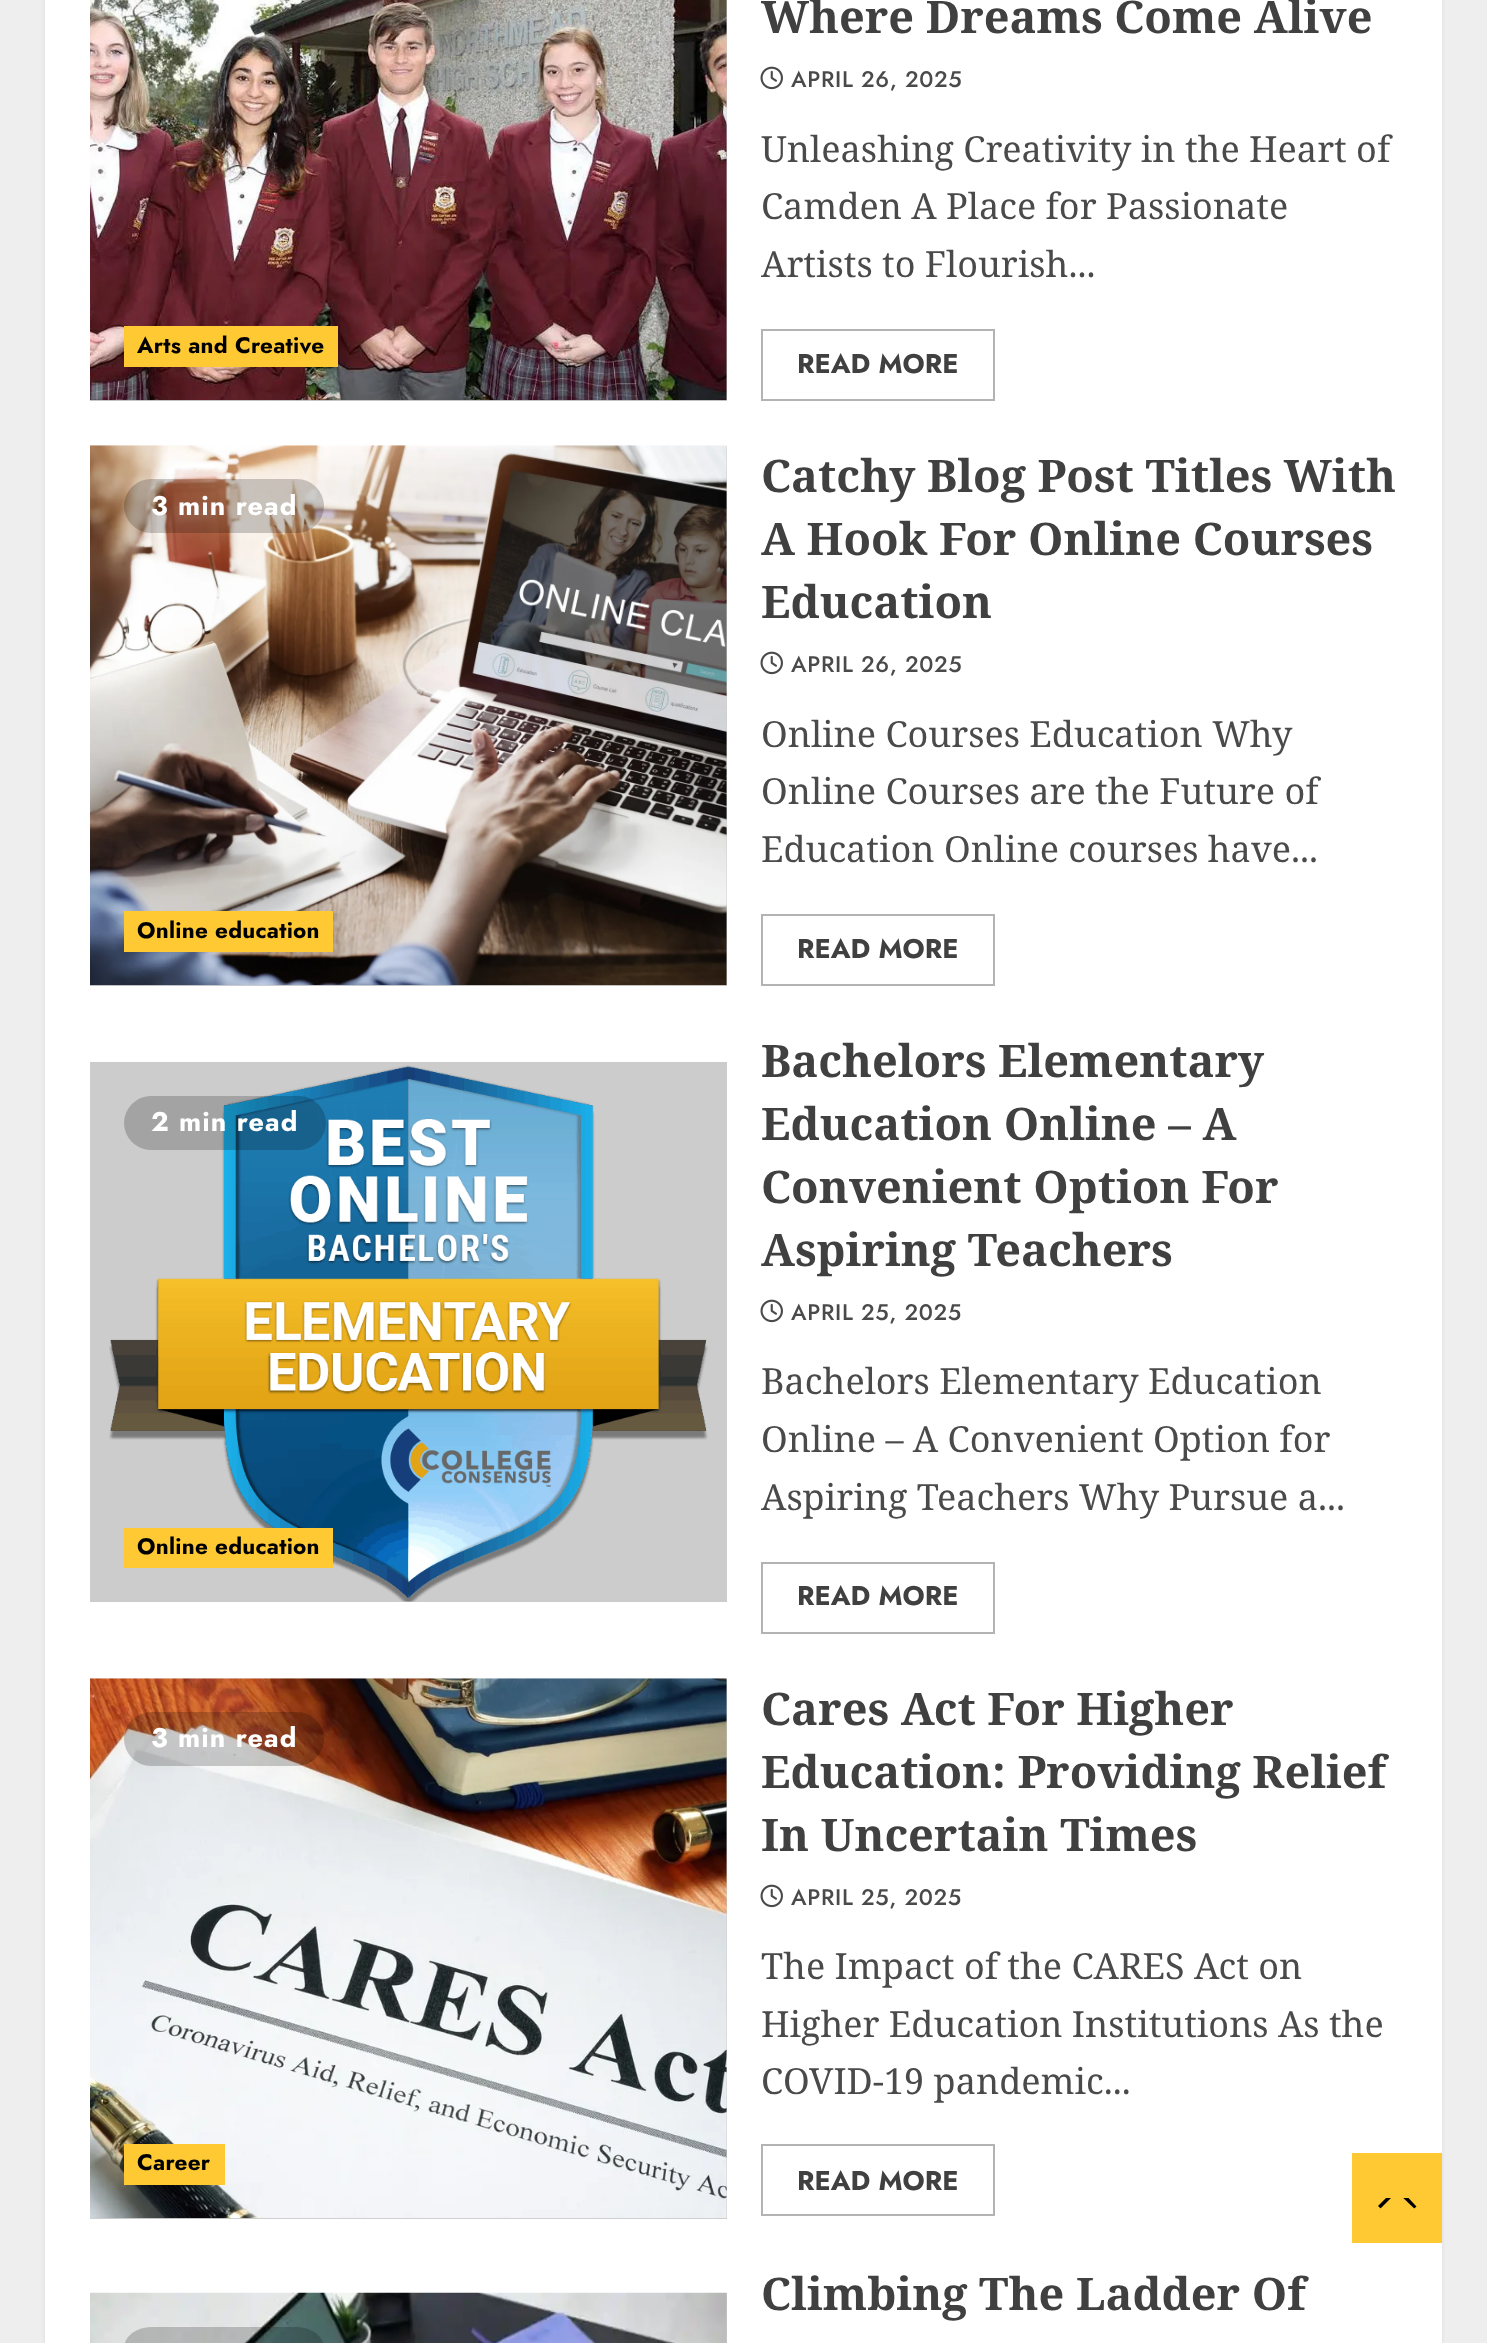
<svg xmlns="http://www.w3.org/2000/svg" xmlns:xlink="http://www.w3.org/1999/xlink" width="1487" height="2343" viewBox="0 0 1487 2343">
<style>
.cls-1{font:bold 22.5px Jost;letter-spacing:0.25px;fill:#000000}
.cls-2{font:bold 45px Noto Serif;fill:#404040}
.cls-3{font:500 22.5px Jost;letter-spacing:0.7px;fill:#4a4a4a}
.cls-4{font:36px Noto Serif;fill:#4a4a4a}
.cls-5{font:bold 27px Jost;fill:#404040}
.cls-6{font:bold 27px Jost;letter-spacing:1.1px;fill:#ffffff}
</style>
<rect width="100%" height="100%" fill="#eeeeee"/>
<rect fill="#000000" fill-opacity="0.08" filter="blur(2px)" x="45" y="-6" width="1397" height="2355"/>
<rect fill="#ffffff" x="45" y="0" width="1397" height="2343"/>
<rect fill="#cccccc" x="90" y="0" width="637" height="401"/>
<image xlink:href="image0.png" x="90" y="0" width="637" height="401"/>
<rect fill="#ffc934" x="124" y="326" width="214" height="41"/>
<image xlink:href="image1.png" x="760" y="66" width="23" height="24"/>
<rect fill="none" stroke="#b3b3b3" stroke-width="2" x="762" y="330" width="232" height="70"/>
<rect fill="#cccccc" x="90" y="446" width="637" height="540"/>
<image xlink:href="image2.png" x="90" y="445" width="637" height="541"/>
<rect fill="#000000" fill-opacity="0.2" x="124" y="479" width="200" height="54" rx="27"/>
<rect fill="#ffc934" x="124" y="911" width="209" height="41"/>
<image xlink:href="image1.png" x="760" y="651" width="23" height="24"/>
<rect fill="none" stroke="#b3b3b3" stroke-width="2" x="762" y="915" width="232" height="70"/>
<rect fill="#cccccc" x="90" y="1062" width="637" height="540"/>
<image xlink:href="image3.png" x="109" y="1065" width="599" height="537"/>
<rect fill="#000000" fill-opacity="0.2" x="124" y="1096" width="202" height="54" rx="27"/>
<rect fill="#ffc934" x="124" y="1528" width="209" height="40"/>
<image xlink:href="image1.png" x="760" y="1299" width="23" height="24"/>
<rect fill="none" stroke="#b3b3b3" stroke-width="2" x="762" y="1563" width="232" height="70"/>
<rect fill="#cccccc" x="90" y="1679" width="637" height="540"/>
<image xlink:href="image4.png" x="90" y="1678" width="637" height="541"/>
<rect fill="#000000" fill-opacity="0.2" x="124" y="1712" width="200" height="54" rx="27"/>
<rect fill="#ffc934" x="124" y="2144" width="101" height="41"/>
<image xlink:href="image1.png" x="760" y="1884" width="23" height="24"/>
<rect fill="none" stroke="#b3b3b3" stroke-width="2" x="762" y="2145" width="232" height="70"/>
<rect fill="#cccccc" x="726" y="2293" width="1" height="50"/>
<image xlink:href="image5.png" x="90" y="2292" width="637" height="51"/>
<rect fill="#000000" fill-opacity="0.2" x="124" y="2327" width="200" height="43" rx="27"/>
<rect fill="#ffc934" x="1352" y="2153" width="90" height="90"/>
<path fill="#000000" d="M1383 2209.5C1381 2209 1379.5 2207.5 1378 2206L1386 2198H1408.5L1416.5 2206.5C1415 2208 1413.5 2209 1411.5 2209.5Z"/>
<path fill="#ffc934" d="M1420 2214H1375L1397 2192Z"/>
<text class="cls-1" x="137" y="353">Arts and Creative</text>
<text class="cls-2" x="761" y="33">Where Dreams Come Alive</text>
<text class="cls-3" x="791" y="87">APRIL 26, 2025</text>
<text class="cls-4"><tspan x="761" y="162">Unleashing Creativity in the Heart of</tspan><tspan x="761" y="219">Camden A Place for Passionate</tspan><tspan x="761" y="277">Artists to Flourish...</tspan></text>
<text class="cls-5" x="797" y="373">READ MORE</text>
<text class="cls-6" x="151" y="515">3 min read</text>
<text class="cls-1" x="137" y="938">Online education</text>
<text class="cls-2"><tspan x="761" y="492">Catchy Blog Post Titles With</tspan><tspan x="761" y="555">A Hook For Online Courses</tspan><tspan x="761" y="618">Education</tspan></text>
<text class="cls-3" x="791" y="672">APRIL 26, 2025</text>
<text class="cls-4"><tspan x="761" y="747">Online Courses Education Why</tspan><tspan x="761" y="804">Online Courses are the Future of</tspan><tspan x="761" y="862">Education Online courses have...</tspan></text>
<text class="cls-5" x="797" y="958">READ MORE</text>
<text class="cls-6" x="151" y="1131">2 min read</text>
<text class="cls-1" x="137" y="1554">Online education</text>
<text class="cls-2"><tspan x="761" y="1077">Bachelors Elementary</tspan><tspan x="761" y="1140">Education Online – A</tspan><tspan x="761" y="1203">Convenient Option For</tspan><tspan x="761" y="1266">Aspiring Teachers</tspan></text>
<text class="cls-3" x="791" y="1320">APRIL 25, 2025</text>
<text class="cls-4"><tspan x="761" y="1394">Bachelors Elementary Education</tspan><tspan x="761" y="1452">Online – A Convenient Option for</tspan><tspan x="761" y="1510">Aspiring Teachers Why Pursue a...</tspan></text>
<text class="cls-5" x="797" y="1605">READ MORE</text>
<text class="cls-6" x="151" y="1747">3 min read</text>
<text class="cls-1" x="137" y="2170">Career</text>
<text class="cls-2"><tspan x="761" y="1725">Cares Act For Higher</tspan><tspan x="761" y="1788">Education: Providing Relief</tspan><tspan x="761" y="1851">In Uncertain Times</tspan></text>
<text class="cls-3" x="791" y="1905">APRIL 25, 2025</text>
<text class="cls-4"><tspan x="761" y="1979">The Impact of the CARES Act on</tspan><tspan x="761" y="2037">Higher Education Institutions As the</tspan><tspan x="761" y="2094">COVID-19 pandemic...</tspan></text>
<text class="cls-5" x="797" y="2190">READ MORE</text>
<text class="cls-2" x="761" y="2310">Climbing The Ladder Of</text>
</svg>
